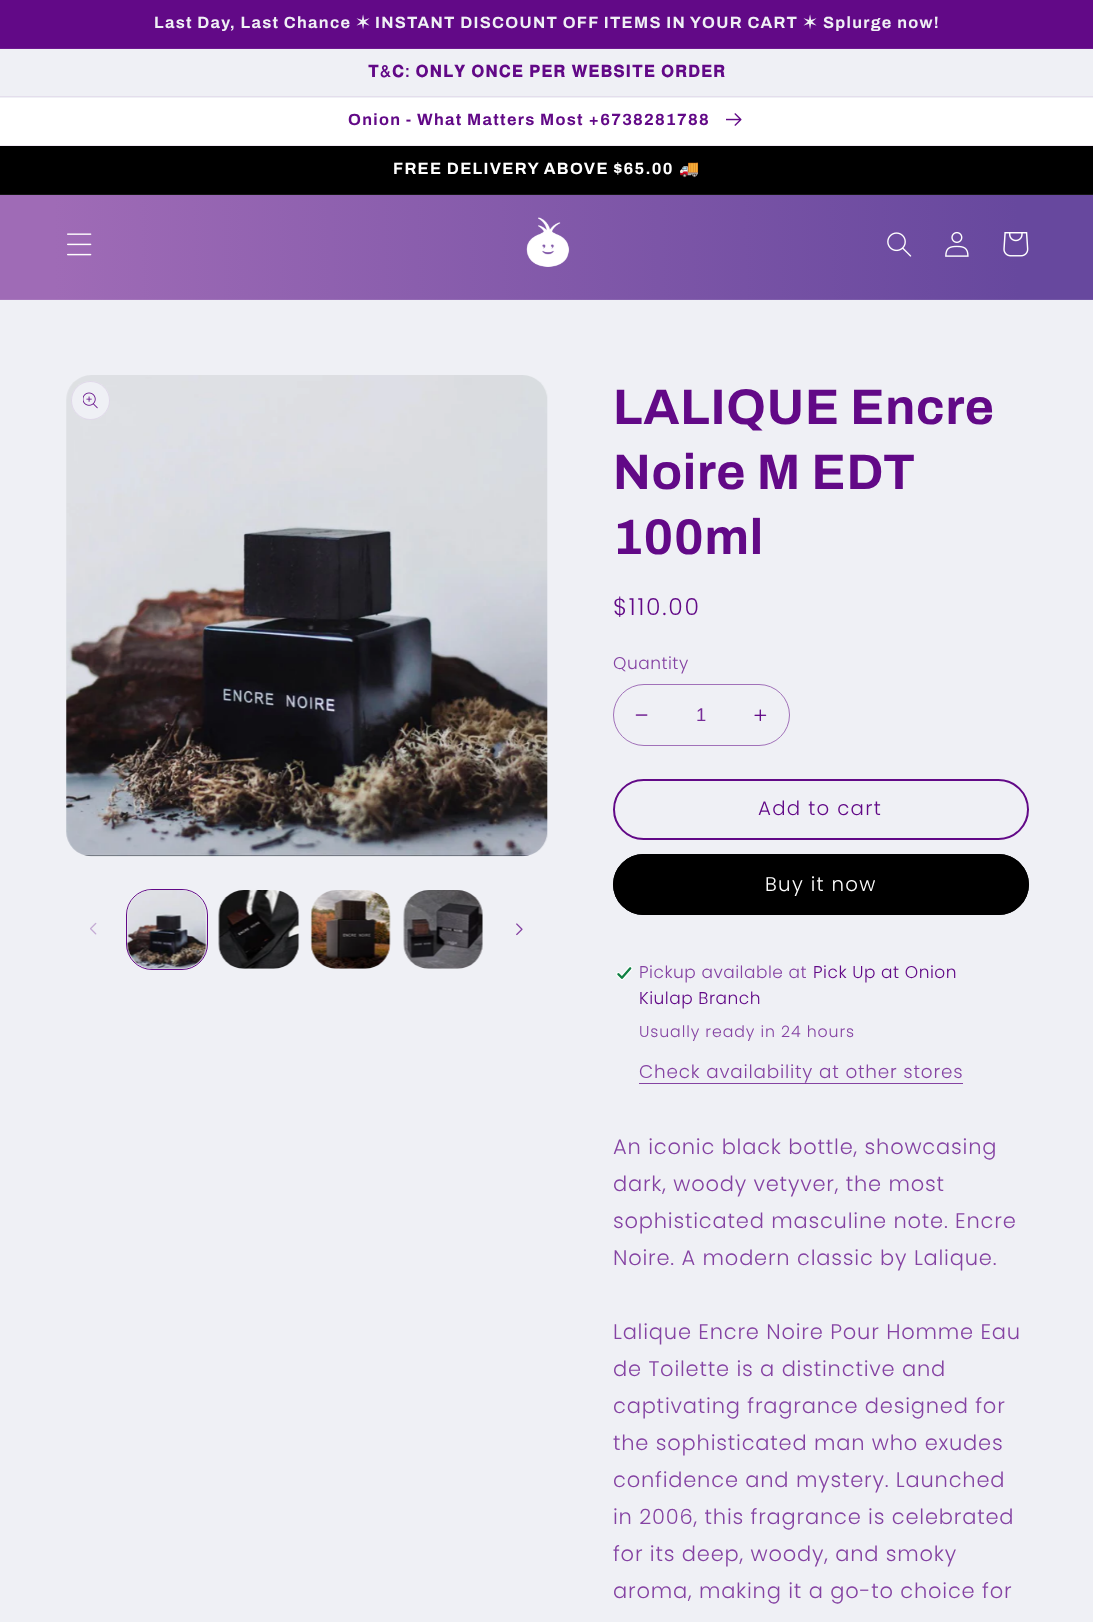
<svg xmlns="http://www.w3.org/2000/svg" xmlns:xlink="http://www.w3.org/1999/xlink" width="1093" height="1622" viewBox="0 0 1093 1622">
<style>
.cls-1{font:bold 16.25px Archivo;letter-spacing:1.3px;fill:#eff0f5}
.cls-2{font:bold 16.25px DejaVu Sans;letter-spacing:1.3px;fill:#eff0f5}
.cls-3{font:bold 16.25px FreeSans;letter-spacing:1.3px;fill:#620987}
.cls-4{font:bold 16.25px Archivo;letter-spacing:1.3px;fill:#620987}
.cls-5{font:bold 16.25px Archivo;letter-spacing:1.3px;fill:#ffffff}
.cls-6{font:bold 16.25px Noto Color Emoji;letter-spacing:1.3px;fill:#ffffff}
.cls-7{font:bold 50px Archivo;letter-spacing:0.75px;fill:#620987}
.cls-8{font:300 23.5px Poppins;letter-spacing:1.75px;fill:#620987}
.cls-9{font:300 17px Poppins;letter-spacing:0.5px;fill:#8543a3}
.cls-10{font:18.4px Liberation Sans;fill:#772c98}
.cls-11{font:300 19.75px Poppins;letter-spacing:1.3px;fill:#620987}
.cls-12{font:300 19.75px Poppins;letter-spacing:1.3px;fill:#ffffff}
.cls-13{font:300 17px Poppins;letter-spacing:0.5px;fill:#620987}
.cls-14{font:300 15.75px Poppins;letter-spacing:0.9px;fill:#8543a3}
.cls-15{font:300 18.4px Poppins;letter-spacing:0.8px;fill:#8543a3}
.cls-16{font:300 21px Poppins;letter-spacing:0.8px;fill:#8543a3}
</style>
<defs>
<linearGradient id="g1" gradientUnits="userSpaceOnUse" x1="-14" y1="821" x2="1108" y2="801"><stop offset="0.07" stop-color="#9f6bb6"/><stop offset="0.93" stop-color="#67489e"/></linearGradient>
<linearGradient id="g2" gradientUnits="userSpaceOnUse" x1="-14" y1="821" x2="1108" y2="801"><stop offset="0.07" stop-color="#a777bc"/><stop offset="0.93" stop-color="#7357a6"/></linearGradient>
</defs>
<rect width="100%" height="100%" fill="#eff0f5"/>
<rect fill="#620987" x="0" y="0" width="1093" height="48"/>
<rect fill="#6d1b90" x="0" y="48" width="1093" height="1"/>
<rect fill="#e4deec" x="0" y="96" width="1093" height="1"/>
<rect fill="#ffffff" x="0" y="98" width="1093" height="47"/>
<rect fill="#f2ebf5" x="0" y="145" width="1093" height="1"/>
<image xlink:href="image0.png" x="726" y="113" width="16" height="13"/>
<rect fill="#000000" x="0" y="146" width="1093" height="48"/>
<rect fill="#141414" x="0" y="194" width="1093" height="1"/>
<rect fill="url(#g1)" x="0" y="195" width="1093" height="104"/>
<rect fill="url(#g2)" x="0" y="299" width="1093" height="1"/>
<image xlink:href="image1.png" x="67" y="233" width="25" height="23"/>
<image xlink:href="image2.png" x="526" y="217" width="44" height="50"/>
<image xlink:href="image3.png" x="887" y="232" width="25" height="25"/>
<image xlink:href="image4.png" x="945" y="231" width="24" height="26"/>
<image xlink:href="image5.png" x="1003" y="232" width="26" height="25"/>
<image xlink:href="image6.png" x="66" y="375" width="482" height="482"/>
<circle fill="#eff0f5" cx="90.5" cy="400.5" r="19.5"/>
<circle fill="none" stroke="#620987" stroke-opacity="0.1" cx="90.5" cy="400.5" r="19"/>
<image xlink:href="image7.png" x="83" y="392" width="15" height="17"/>
<image xlink:href="image8.png" x="90" y="922" width="7" height="13"/>
<rect fill="none" stroke="#620987" x="126.5" y="889.5" width="81" height="80" rx="25.5"/>
<image xlink:href="image9.png" x="127" y="890" width="80" height="79"/>
<image xlink:href="image10.png" x="218" y="890" width="82" height="79"/>
<image xlink:href="image11.png" x="310" y="890" width="81" height="79"/>
<image xlink:href="image12.png" x="403" y="890" width="80" height="79"/>
<image xlink:href="image13.png" x="516" y="923" width="7" height="13"/>
<image xlink:href="image14.png" x="635" y="714" width="13" height="2"/>
<image xlink:href="image15.png" x="754" y="709" width="13" height="12"/>
<rect fill="none" stroke="#a171b9" x="613.5" y="684.5" width="176" height="61" rx="30.5"/>
<rect fill="none" stroke="#620987" stroke-width="2" x="614" y="780" width="414" height="59" rx="29.5"/>
<rect fill="#000000" x="613" y="854" width="416" height="61" rx="30.5"/>
<rect fill="none" stroke="#000000" x="613.5" y="854.5" width="415" height="60" rx="30"/>
<image xlink:href="image16.png" x="616" y="966" width="17" height="14"/>
<rect fill="#8543a3" x="639" y="1083" width="324" height="1"/>
<text class="cls-1" x="154" y="28">Last Day, Last Chance</text>
<text class="cls-2" x="356" y="28">✶</text>
<text class="cls-1" x="375" y="28">INSTANT DISCOUNT OFF ITEMS IN YOUR CART</text>
<text class="cls-2" x="803" y="28">✶</text>
<text class="cls-1" x="823" y="28">Splurge now!</text>
<text class="cls-3" x="368" y="77" word-spacing="-0.25">𝐓&amp;𝐂: 𝐎𝐍𝐋𝐘 𝐎𝐍𝐂𝐄 𝐏𝐄𝐑 𝐖𝐄𝐁𝐒𝐈𝐓𝐄 𝐎𝐑𝐃𝐄𝐑</text>
<text class="cls-4" x="348" y="125">Onion - What Matters Most +6738281788</text>
<text class="cls-5" x="393" y="174">FREE DELIVERY ABOVE $65.00</text>
<text class="cls-6" x="679" y="174">🚚</text>
<text class="cls-7"><tspan x="613" y="424">LALIQUE Encre</tspan><tspan x="613" y="489">Noire M EDT</tspan><tspan x="613" y="554">100ml</tspan></text>
<text class="cls-8" x="613" y="615">$110.00</text>
<text class="cls-9" x="613" y="669">Quantity</text>
<text class="cls-10" x="696" y="721">1</text>
<text class="cls-11" x="758" y="815">Add to cart</text>
<text class="cls-12" x="765" y="891">Buy it now</text>
<text class="cls-9" x="639" y="978">Pickup available at</text>
<text class="cls-13" x="813" y="978">Pick Up at Onion</text>
<text class="cls-13" x="639" y="1004">Kiulap Branch</text>
<text class="cls-14" x="639" y="1037">Usually ready in 24 hours</text>
<text class="cls-15" x="639" y="1078">Check availability at other stores</text>
<text class="cls-16"><tspan x="613" y="1154">An iconic black bottle, showcasing</tspan><tspan x="613" y="1191">dark, woody vetyver, the most</tspan><tspan x="613" y="1228">sophisticated masculine note. Encre</tspan><tspan x="613" y="1265">Noire. A modern classic by Lalique.</tspan></text>
<text class="cls-16"><tspan x="613" y="1339">Lalique Encre Noire Pour Homme Eau</tspan><tspan x="613" y="1376">de Toilette is a distinctive and</tspan><tspan x="613" y="1413">captivating fragrance designed for</tspan><tspan x="613" y="1450">the sophisticated man who exudes</tspan><tspan x="613" y="1487">confidence and mystery. Launched</tspan><tspan x="613" y="1524">in 2006, this fragrance is celebrated</tspan><tspan x="613" y="1561">for its deep, woody, and smoky</tspan><tspan x="613" y="1598">aroma, making it a go-to choice for</tspan></text>
</svg>
